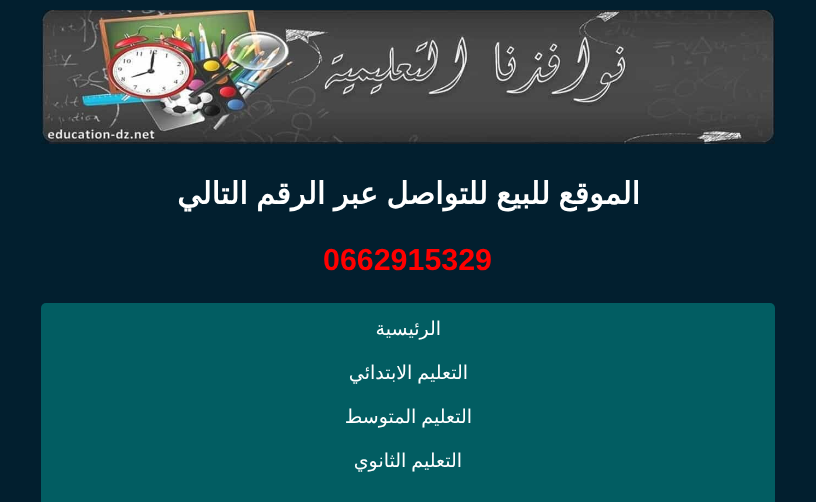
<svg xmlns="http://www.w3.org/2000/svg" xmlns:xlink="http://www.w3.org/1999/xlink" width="816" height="502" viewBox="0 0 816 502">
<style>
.cls-1{font:bold 30.4px DejaVu Sans;direction:rtl;fill:#ffffff}
.cls-2{font:bold 30.4px Liberation Sans;fill:#ff0000}
.cls-3{font:19px DejaVu Sans;direction:rtl;fill:#ffffff}
</style>
<rect width="100%" height="100%" fill="#021f2f"/>
<image xlink:href="image0.png" x="41" y="10" width="734" height="134"/>
<rect fill="#025d62" x="41" y="303" width="734" height="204" rx="5"/>
<text class="cls-1" x="640" y="204" word-spacing="-1.25">الموقع للبيع للتواصل عبر الرقم التالي</text>
<text class="cls-2" x="323" y="270">0662915329</text>
<text class="cls-3" x="441" y="335">الرئيسية</text>
<text class="cls-3" x="468" y="379" word-spacing="-1">التعليم الابتدائي</text>
<text class="cls-3" x="472" y="423" word-spacing="-1">التعليم المتوسط</text>
<text class="cls-3" x="462" y="467" word-spacing="-1">التعليم الثانوي</text>
</svg>
